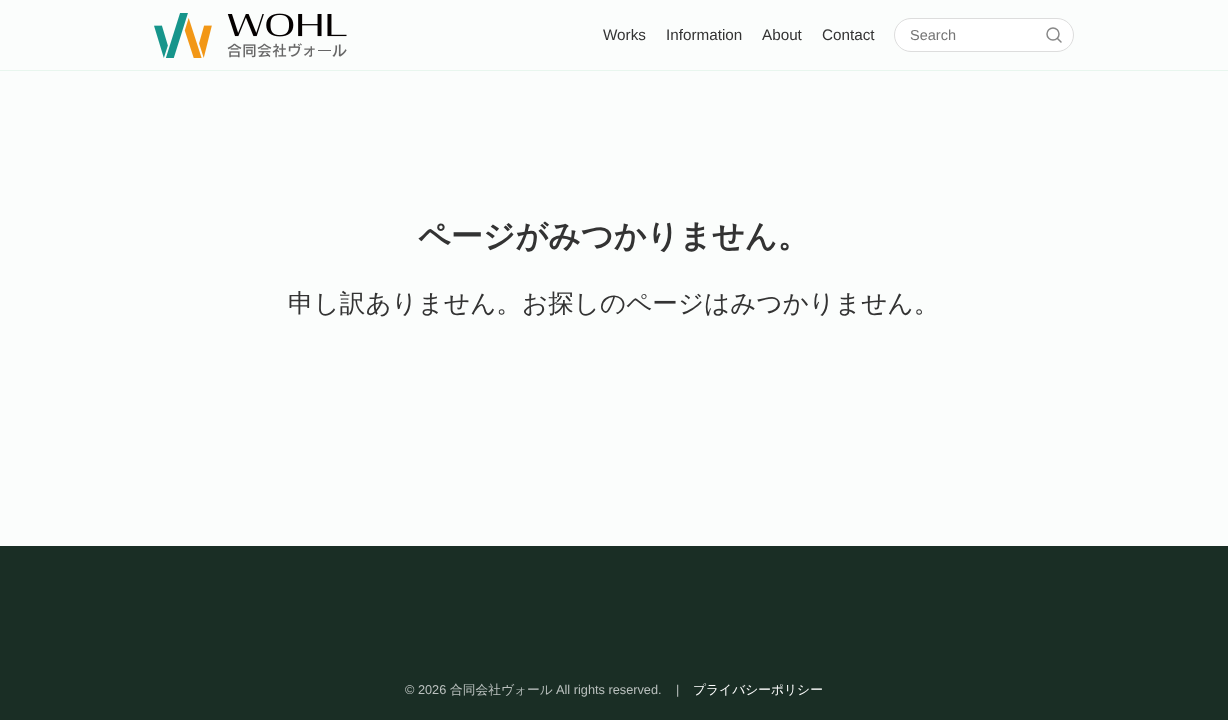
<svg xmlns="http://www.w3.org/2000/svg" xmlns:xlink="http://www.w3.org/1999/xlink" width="1228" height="720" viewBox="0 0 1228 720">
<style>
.cls-1{font:15.25px Liberation Sans;fill:#333333}
.cls-2{font:14.5px Liberation Sans;fill:#757575}
.cls-3{font:bold 32px WenQuanYi Zen Hei;fill:#333333}
.cls-4{font:500 25.6px WenQuanYi Zen Hei;fill:#333333}
.cls-5{font:12.75px Liberation Sans;fill:#bac0be}
.cls-6{font:500 12.75px WenQuanYi Zen Hei;fill:#bac0be}
.cls-7{font:500 12.75px WenQuanYi Zen Hei;fill:#ffffff}
</style>
<rect width="100%" height="100%" fill="#fbfdfc"/>
<rect fill="#e8f6ee" x="0" y="70" width="1228" height="1"/>
<image xlink:href="image0.png" x="154" y="13" width="193" height="45"/>
<rect fill="#ffffff" stroke="#dddddd" x="894.5" y="18.5" width="179" height="33" rx="16.5"/>
<circle fill="none" stroke="#888888" stroke-width="1.5" cx="1053" cy="34" r="6"/>
<path fill="none" stroke="#888888" stroke-width="1.5" stroke-linecap="round" stroke-linejoin="round" d="M1061 42L1057.5 38.5"/>
<rect fill="#1a2e25" x="0" y="546" width="1228" height="174"/>
<text class="cls-1" x="603" y="40">Works</text>
<text class="cls-1" x="666" y="40">Information</text>
<text class="cls-1" x="762" y="40">About</text>
<text class="cls-1" x="822" y="40">Contact</text>
<text class="cls-2" x="910" y="40">Search</text>
<text class="cls-3" x="418" y="247">ページがみつかりません。</text>
<text class="cls-4" x="288" y="312">申し訳ありません。お探しのページはみつかりません。</text>
<text class="cls-5" x="405" y="694">© 2026</text>
<text class="cls-6" x="450" y="694">合同会社ヴォール</text>
<text class="cls-5" x="556" y="694">All rights reserved.</text>
<text class="cls-5" x="676" y="694">|</text>
<text class="cls-7" x="693" y="694">プライバシーポリシー</text>
</svg>
